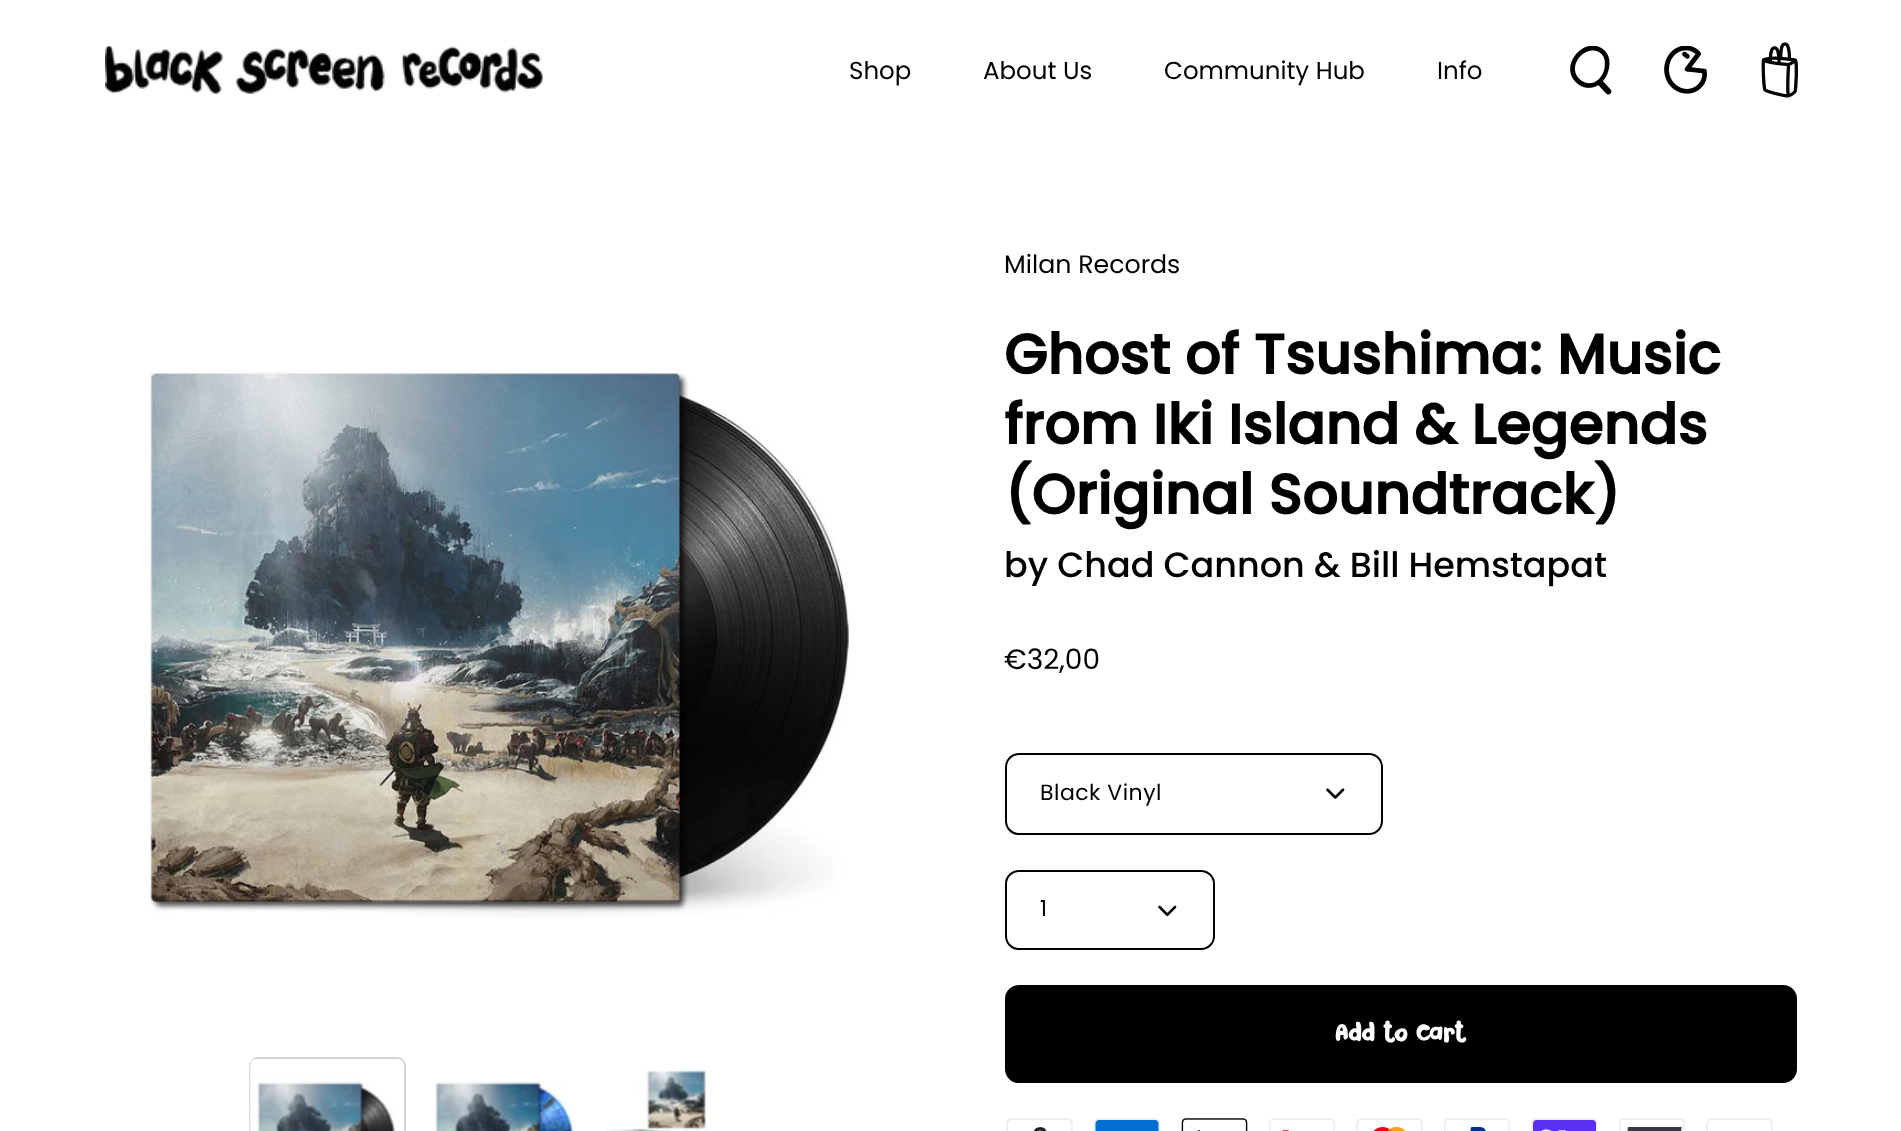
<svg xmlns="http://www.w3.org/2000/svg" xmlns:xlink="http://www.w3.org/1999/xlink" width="1901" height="1131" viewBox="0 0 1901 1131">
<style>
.cls-1{font:24.5px Poppins;fill:#000000}
.cls-2{font:25.25px Poppins;fill:#000000}
.cls-3{font:bold 56px Poppins;fill:#000000}
.cls-4{font:500 35px Poppins;fill:#000000}
.cls-5{font:28px Poppins;fill:#000000}
.cls-6{font:22px Poppins;letter-spacing:0.5px;fill:#000000}
.cls-7{font:25.25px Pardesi;fill:#ffffff}
</style>
<rect width="100%" height="100%" fill="#ffffff"/>
<image xlink:href="image0.png" x="105" y="45" width="438" height="49"/>
<image xlink:href="image1.png" x="1570" y="46" width="42" height="49"/>
<image xlink:href="image2.png" x="1664" y="46" width="43" height="48"/>
<image xlink:href="image3.png" x="1761" y="42" width="37" height="56"/>
<image xlink:href="image4.png" x="149" y="370" width="702" height="548"/>
<rect fill="none" stroke="#d3d3d3" stroke-width="2" x="250" y="1058" width="155" height="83" rx="8"/>
<image xlink:href="image5.png" x="249" y="1059" width="155" height="72"/>
<image xlink:href="image6.png" x="435" y="1081" width="140" height="50"/>
<image xlink:href="image7.png" x="606" y="1070" width="106" height="61"/>
<rect fill="none" stroke="#000000" stroke-width="2" x="1006" y="754" width="376" height="80" rx="13"/>
<image xlink:href="image8.png" x="1326" y="788" width="19" height="11"/>
<rect fill="none" stroke="#000000" stroke-width="2" x="1006" y="871" width="208" height="78" rx="13"/>
<image xlink:href="image9.png" x="1158" y="905" width="19" height="12"/>
<rect fill="#000000" stroke="#000000" stroke-width="4" x="1007" y="987" width="788" height="94" rx="12"/>
<image xlink:href="image10.png" x="1006" y="1118" width="67" height="13"/>
<image xlink:href="image11.png" x="1094" y="1118" width="66" height="13"/>
<image xlink:href="image12.png" x="1181" y="1118" width="67" height="13"/>
<image xlink:href="image13.png" x="1269" y="1118" width="66" height="13"/>
<image xlink:href="image14.png" x="1356" y="1118" width="67" height="13"/>
<image xlink:href="image15.png" x="1444" y="1118" width="66" height="13"/>
<image xlink:href="image16.png" x="1531" y="1118" width="67" height="13"/>
<image xlink:href="image17.png" x="1619" y="1118" width="66" height="13"/>
<image xlink:href="image18.png" x="1706" y="1118" width="67" height="13"/>
<text class="cls-1" x="849" y="79">Shop</text>
<text class="cls-1" x="983" y="79">About Us</text>
<text class="cls-1" x="1164" y="79">Community Hub</text>
<text class="cls-1" x="1437" y="79">Info</text>
<text class="cls-2" x="1004" y="273">Milan Records</text>
<text class="cls-3"><tspan x="1004" y="374">Ghost of Tsushima: Music</tspan><tspan x="1004" y="444">from Iki Island &amp; Legends</tspan><tspan x="1004" y="514">(Original Soundtrack)</tspan></text>
<text class="cls-4" x="1004" y="577">by Chad Cannon &amp; Bill Hemstapat</text>
<text class="cls-5" x="1004" y="669">€32,00</text>
<text class="cls-6" x="1040" y="800">Black Vinyl</text>
<text class="cls-6" x="1040" y="916">1</text>
<text class="cls-7" x="1335" y="1041">Add to Cart</text>
</svg>
